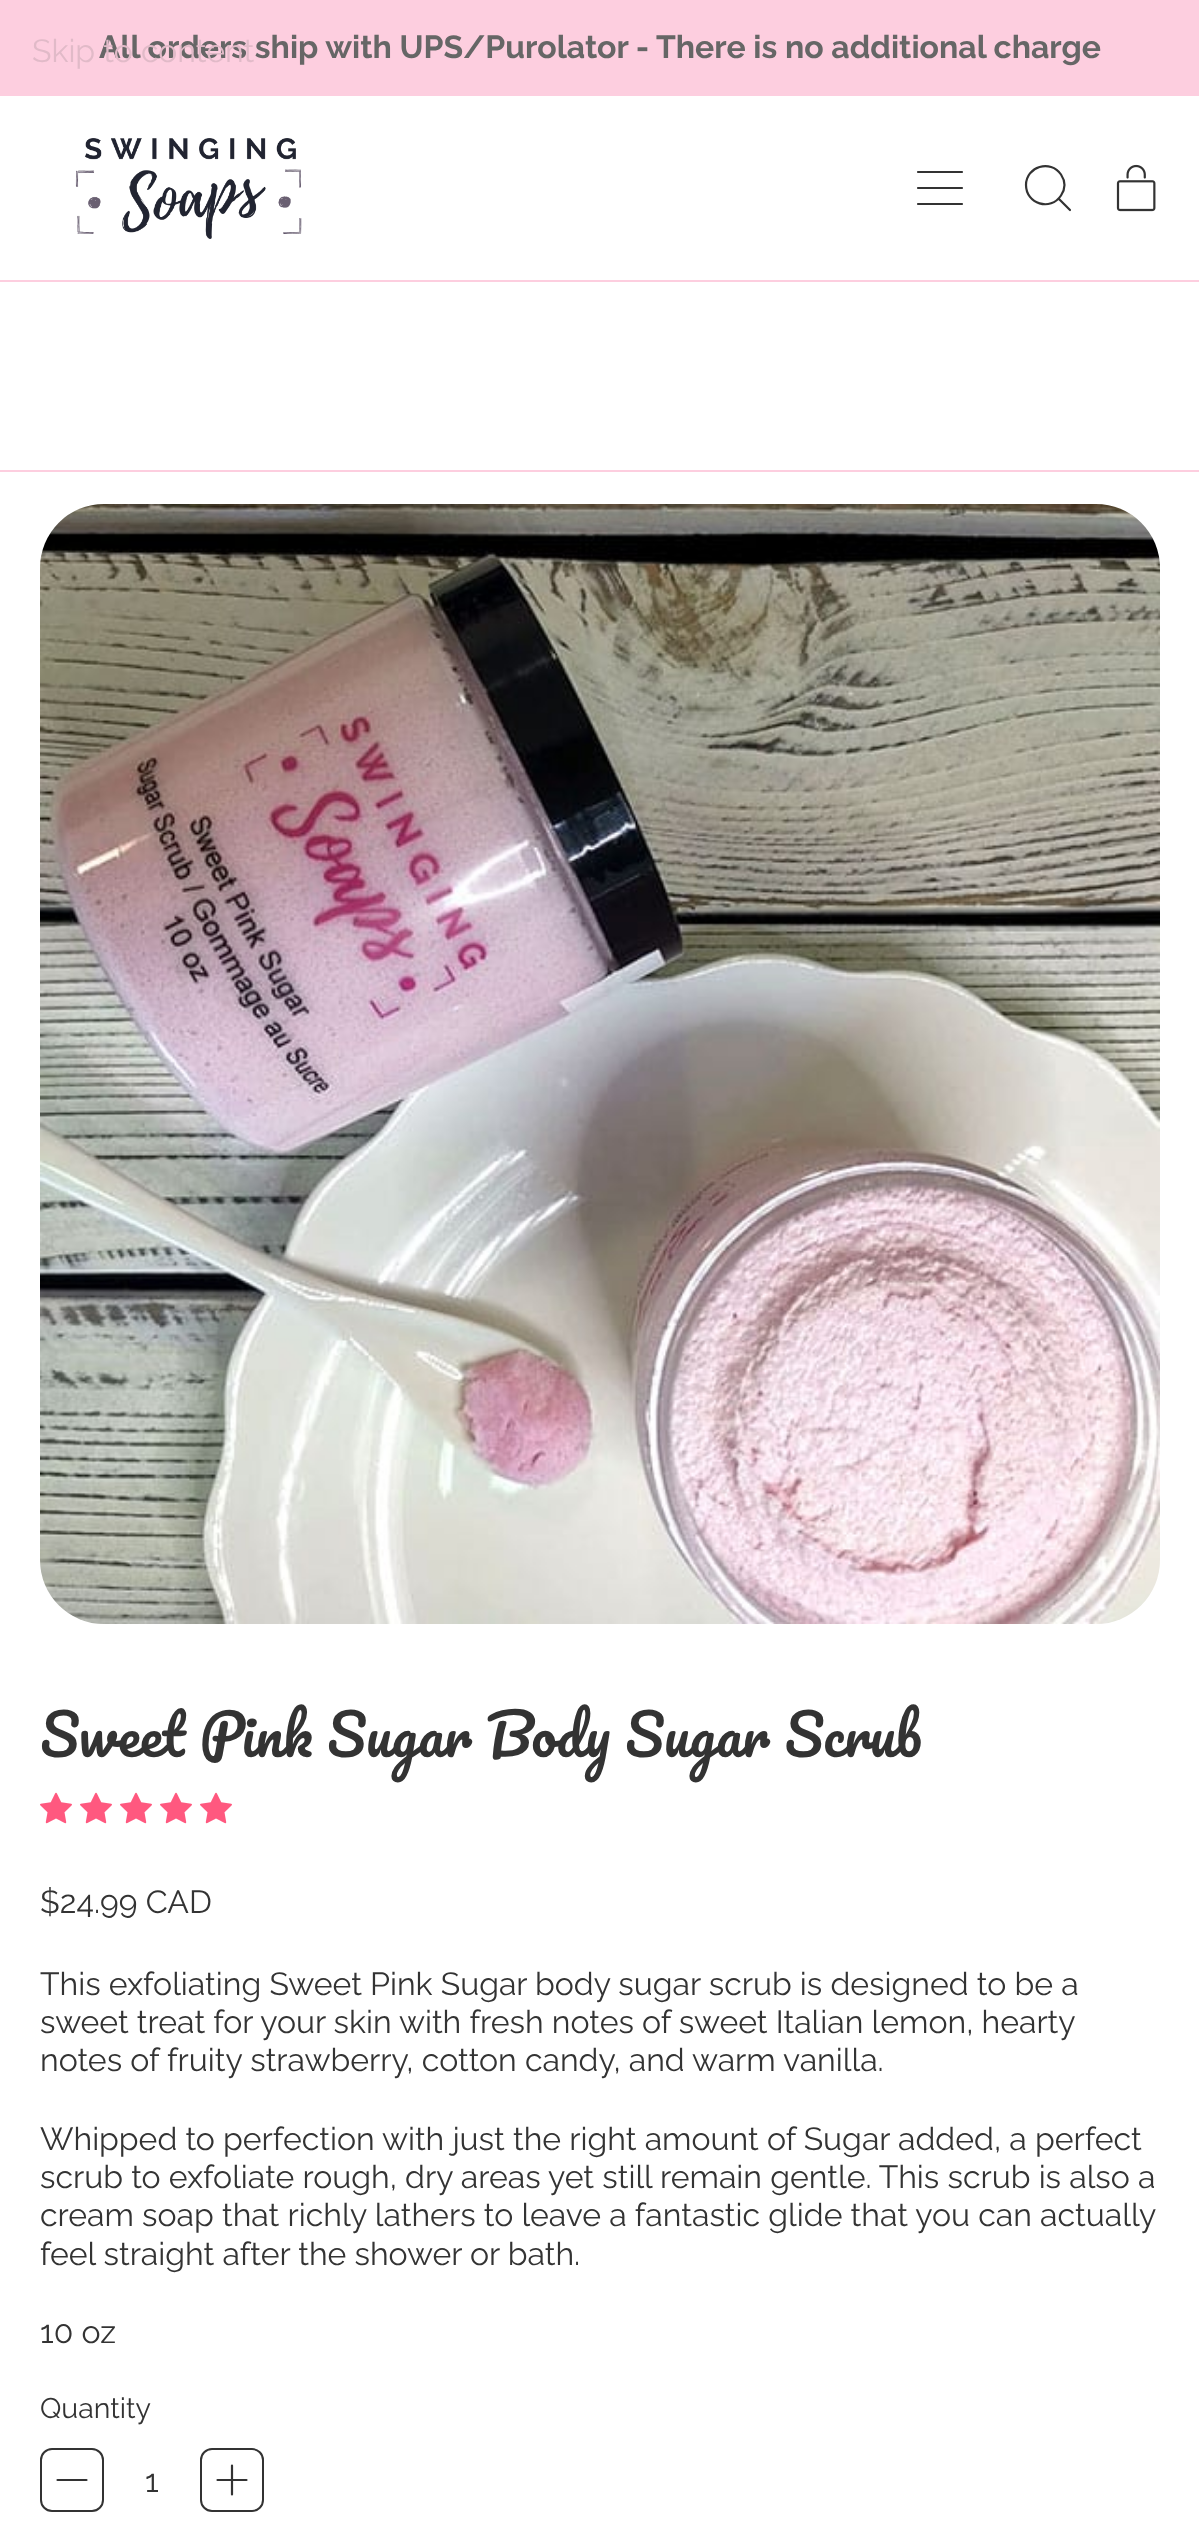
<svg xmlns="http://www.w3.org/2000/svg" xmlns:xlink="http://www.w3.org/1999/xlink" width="1199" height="2535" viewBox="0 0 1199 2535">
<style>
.cls-1{font:bold 32px Raleway;fill:#666666}
.cls-2{font:32px Raleway;fill:#e1bac8}
.cls-3{font:56px Pacifico;fill:#333333}
.cls-4{font:32px Raleway;fill:#333333}
.cls-5{font:28.5px Raleway;fill:#333333}
</style>
<rect width="100%" height="100%" fill="#ffffff"/>
<rect fill="#fdcedf" x="0" y="0" width="1199" height="96"/>
<rect fill="#fdcedf" x="0" y="280" width="1199" height="2"/>
<image xlink:href="image0.png" x="75" y="138" width="227" height="101"/>
<path fill="none" stroke="#333333" stroke-width="2.2" stroke-linecap="round" stroke-linejoin="round" d="M962 204H918M962 188H918M962 172H918"/>
<path fill="none" stroke="#333333" stroke-width="2.2" stroke-linecap="round" stroke-linejoin="round" d="M1026 185C1026 204 1050.5 211.5 1061 195.5C1063 192.5 1064.5 189 1064.5 185C1064.5 181.5 1063 177.5 1061 174.5C1050.5 159 1026 166.5 1026 185ZM1070 210L1058.5 198.5"/>
<image xlink:href="image1.png" x="1116" y="164" width="40" height="48"/>
<rect fill="#fdcedf" x="0" y="470" width="1199" height="2"/>
<image xlink:href="image2.png" x="40" y="504" width="1120" height="1120"/>
<image xlink:href="image3.png" x="40" y="1792" width="32" height="32"/>
<image xlink:href="image3.png" x="80" y="1792" width="32" height="32"/>
<image xlink:href="image3.png" x="120" y="1792" width="32" height="32"/>
<image xlink:href="image3.png" x="160" y="1792" width="32" height="32"/>
<image xlink:href="image3.png" x="200" y="1792" width="32" height="32"/>
<rect fill="none" stroke="#333333" stroke-width="2" x="41" y="2449" width="62" height="62" rx="11"/>
<path fill="none" stroke="#333333" stroke-width="2.2" stroke-linecap="round" stroke-linejoin="round" d="M86.5 2480H57.5"/>
<rect fill="none" stroke="#333333" stroke-width="2" x="201" y="2449" width="62" height="62" rx="11"/>
<path fill="none" stroke="#333333" stroke-width="2.2" stroke-linecap="round" stroke-linejoin="round" d="M232 2465.5V2494.5M246.5 2480H217.5"/>
<text class="cls-1" x="99" y="58">All orders ship with UPS/Purolator - There is no additional charge</text>
<text class="cls-2" x="32" y="62">Skip to content</text>
<text class="cls-3" x="40" y="1757">Sweet Pink Sugar Body Sugar Scrub</text>
<text class="cls-4" x="40" y="1913">$24.99 CAD</text>
<text class="cls-4"><tspan x="40" y="1995">This exfoliating Sweet Pink Sugar body sugar scrub is designed to be a</tspan><tspan x="40" y="2033">sweet treat for your skin with fresh notes of sweet Italian lemon, hearty</tspan><tspan x="40" y="2071">notes of fruity strawberry, cotton candy, and warm vanilla.</tspan></text>
<text class="cls-4"><tspan x="40" y="2150">Whipped to perfection with just the right amount of Sugar added, a perfect</tspan><tspan x="40" y="2188">scrub to exfoliate rough, dry areas yet still remain gentle. This scrub is also a</tspan><tspan x="40" y="2226">cream soap that richly lathers to leave a fantastic glide that you can actually</tspan><tspan x="40" y="2265">feel straight after the shower or bath.</tspan></text>
<text class="cls-4" x="40" y="2343">10 oz</text>
<text class="cls-5" x="40" y="2418">Quantity</text>
<text class="cls-4" x="145" y="2492">1</text>
</svg>
